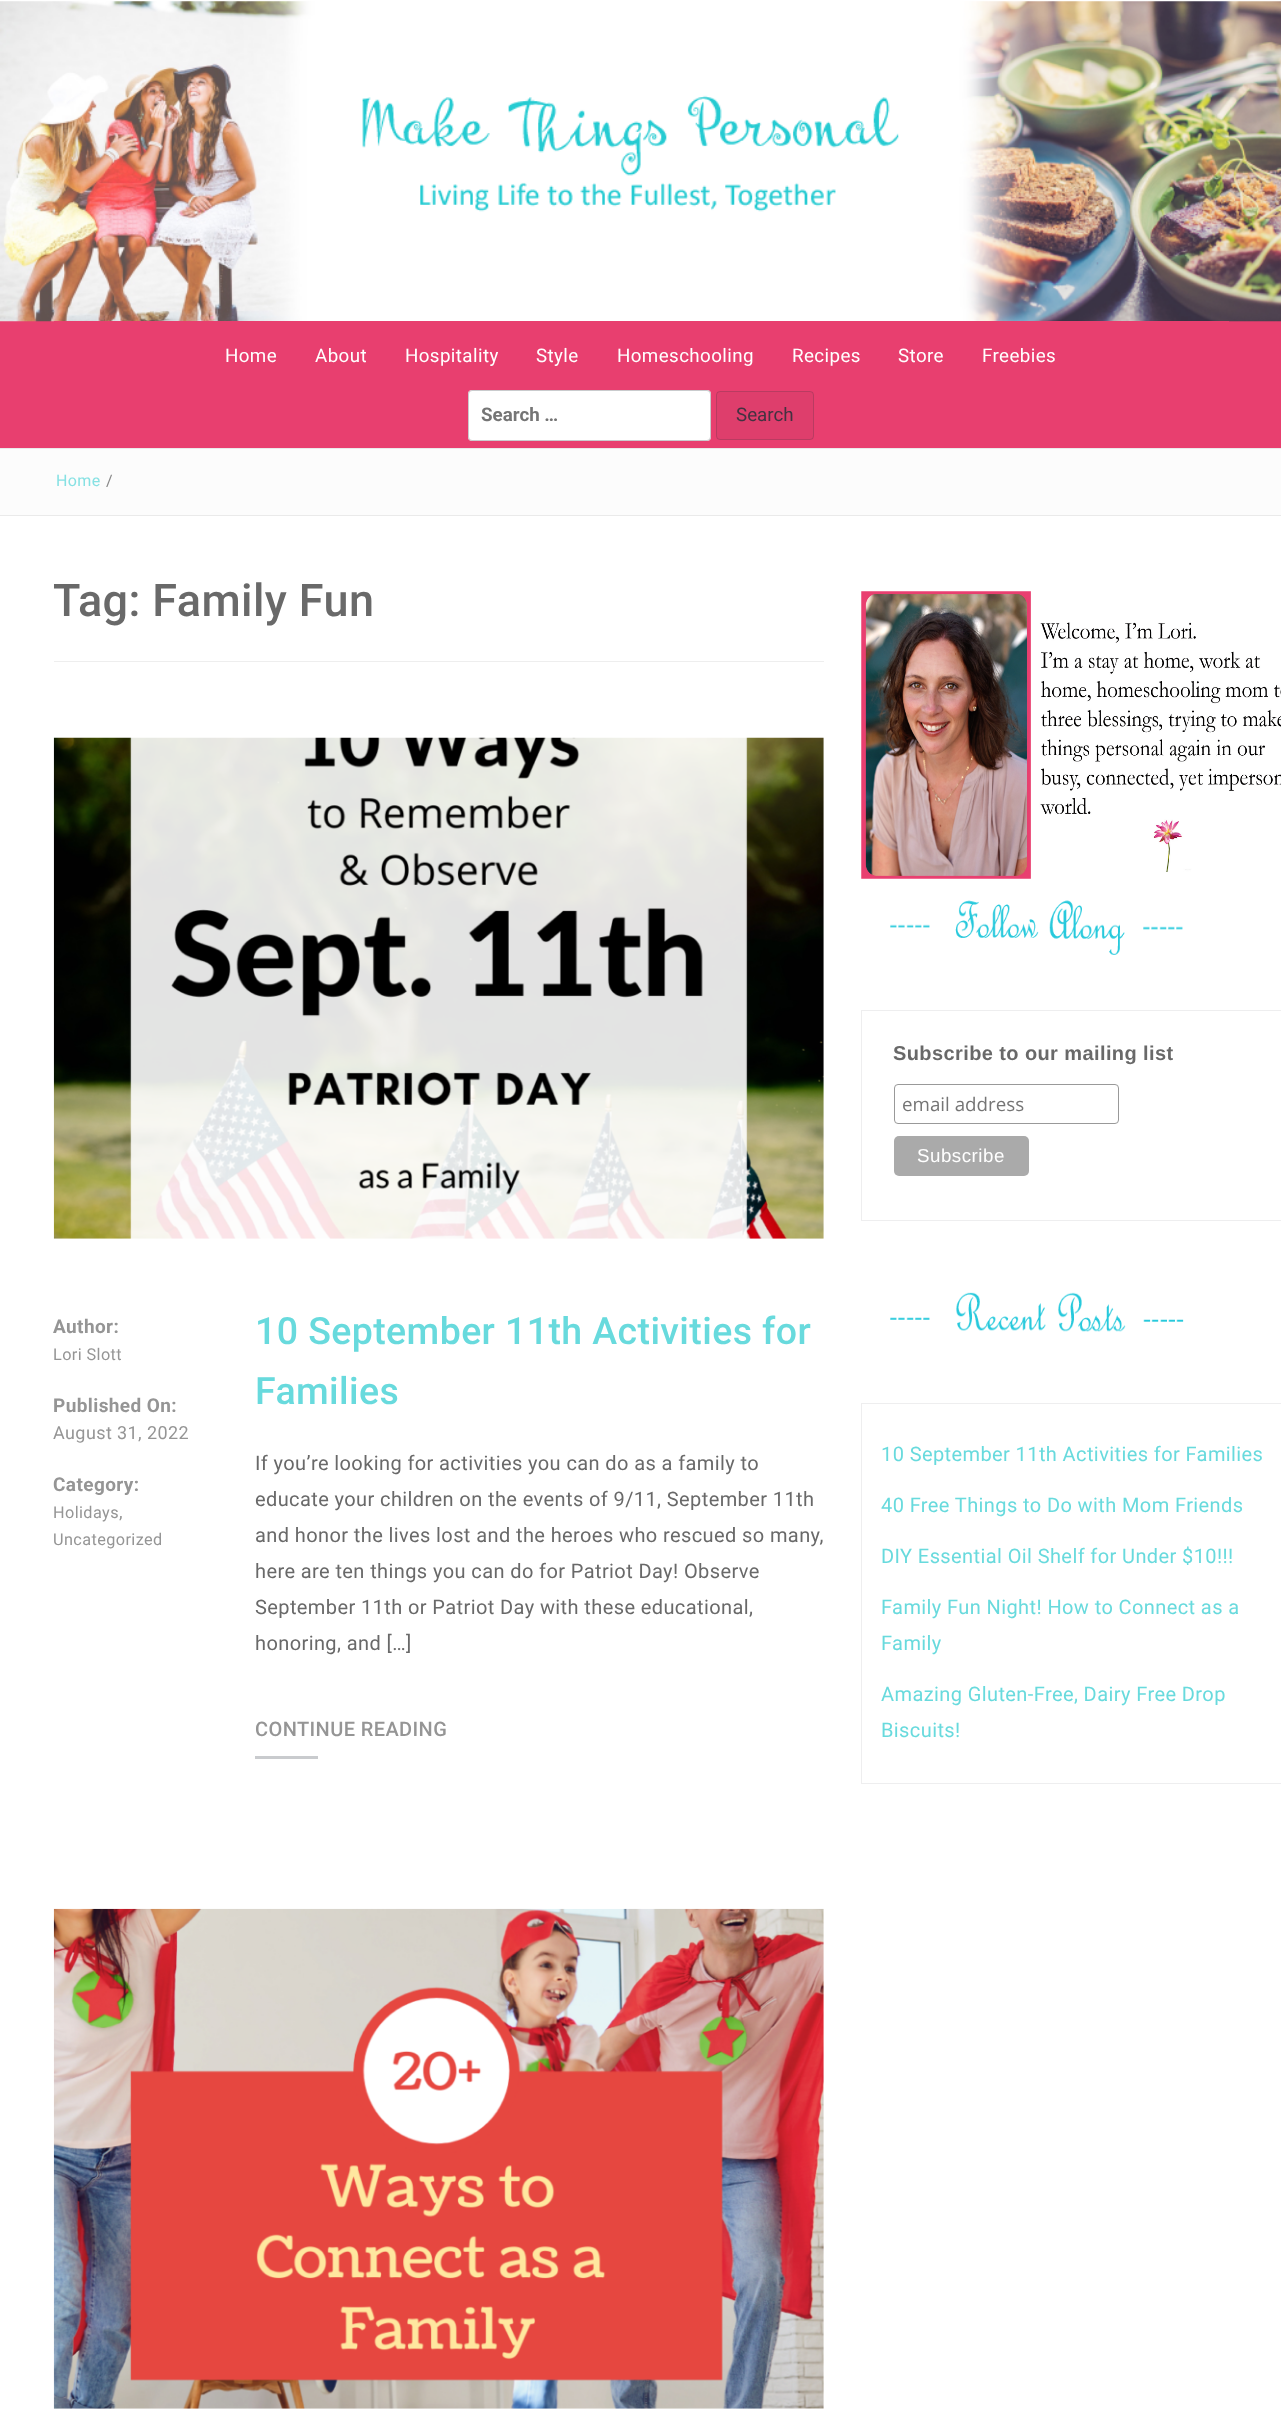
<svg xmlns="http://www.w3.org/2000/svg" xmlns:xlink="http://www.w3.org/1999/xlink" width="1281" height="2414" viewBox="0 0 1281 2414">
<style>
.cls-1{font:18.75px Roboto;letter-spacing:0.4px;fill:#ffffff}
.cls-2{font:bold 18.75px Roboto;fill:#757575}
.cls-3{font:18.75px Roboto;fill:#423241}
.cls-4{font:16px Roboto;letter-spacing:0.4px;fill:#86e1e3}
.cls-5{font:16px Roboto;letter-spacing:0.4px;fill:#878787}
.cls-6{font:500 45px Roboto;letter-spacing:0.4px;fill:#696969}
.cls-7{font:bold 19px Roboto;letter-spacing:0.4px;fill:#959595}
.cls-8{font:16.25px Roboto;letter-spacing:0.4px;fill:#959595}
.cls-9{font:18px Roboto;letter-spacing:0.4px;fill:#959595}
.cls-10{font:500 37.5px Roboto;letter-spacing:0.4px;fill:#68dadd}
.cls-11{font:20px Roboto;letter-spacing:0.4px;fill:#696969}
.cls-12{font:500 20px Roboto;letter-spacing:0.4px;fill:#959595}
.cls-13{font:bold 20px Liberation Sans;letter-spacing:0.4px;fill:#696969}
.cls-14{font:18.75px Open Sans;fill:#757575}
.cls-15{font:18.75px Liberation Sans;letter-spacing:0.5px;fill:#ffffff}
.cls-16{font:20px Roboto;letter-spacing:0.4px;fill:#68dadd}
</style>
<rect width="100%" height="100%" fill="#ffffff"/>
<rect fill="#e83f6f" x="0" y="321" width="1281" height="127"/>
<image xlink:href="image0.png" x="0" y="1" width="1281" height="321"/>
<rect fill="#e83f6f" x="54" y="321" width="1175" height="1"/>
<rect fill="#ffffff" x="468" y="390" width="243" height="51" rx="4"/>
<rect fill="none" stroke="#273039" stroke-opacity="0.25" x="468.5" y="390.5" width="242" height="50" rx="3.5"/>
<rect fill="#de3e6c" x="716" y="391" width="98" height="49" rx="4"/>
<rect fill="none" stroke="#273039" stroke-opacity="0.2" x="716.5" y="391.5" width="97" height="48" rx="3.5"/>
<rect fill="#fcfcfc" x="0" y="449" width="1281" height="66"/>
<rect fill="#eaeaea" x="0" y="448" width="1281" height="1"/>
<rect fill="#eaeaea" x="0" y="515" width="1281" height="1"/>
<rect fill="#eeeeee" x="54" y="661" width="770" height="1"/>
<image xlink:href="image1.png" x="53" y="737" width="771" height="502"/>
<rect fill="#c9cbce" x="255" y="1756" width="63" height="3"/>
<image xlink:href="image2.png" x="53" y="1908" width="771" height="501"/>
<image xlink:href="image3.png" x="861" y="591" width="420" height="288"/>
<image xlink:href="image4.png" x="890" y="900" width="293" height="55"/>
<rect fill="none" stroke="#eeeeef" x="861.5" y="1010.5" width="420" height="210"/>
<rect fill="none" stroke="#999999" x="894.5" y="1084.5" width="224" height="39" rx="3.5"/>
<rect fill="#aaaaaa" x="894" y="1136" width="135" height="40" rx="5"/>
<image xlink:href="image5.png" x="890" y="1292" width="294" height="40"/>
<rect fill="none" stroke="#eeeeef" x="861.5" y="1403.5" width="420" height="380"/>
<text class="cls-1" x="225" y="362">Home</text>
<text class="cls-1" x="315" y="362">About</text>
<text class="cls-1" x="405" y="362">Hospitality</text>
<text class="cls-1" x="536" y="362">Style</text>
<text class="cls-1" x="617" y="362">Homeschooling</text>
<text class="cls-1" x="792" y="362">Recipes</text>
<text class="cls-1" x="898" y="362">Store</text>
<text class="cls-1" x="982" y="362">Freebies</text>
<text class="cls-2" x="481" y="421">Search …</text>
<text class="cls-3" x="736" y="421">Search</text>
<text class="cls-4" x="56" y="486">Home</text>
<text class="cls-5" x="106" y="486">/</text>
<text class="cls-6" x="53" y="616">Tag: Family Fun</text>
<text class="cls-7" x="53" y="1333">Author:</text>
<text class="cls-8" x="53" y="1360">Lori Slott</text>
<text class="cls-7" x="53" y="1412">Published On:</text>
<text class="cls-9" x="53" y="1439">August 31, 2022</text>
<text class="cls-7" x="53" y="1491">Category:</text>
<text class="cls-8" x="53" y="1518">Holidays</text>
<text class="cls-9" x="119" y="1518">,</text>
<text class="cls-8" x="53" y="1545">Uncategorized</text>
<text class="cls-10"><tspan x="255" y="1344">10 September 11th Activities for</tspan><tspan x="255" y="1404">Families</tspan></text>
<text class="cls-11"><tspan x="255" y="1470">If you’re looking for activities you can do as a family to</tspan><tspan x="255" y="1506">educate your children on the events of 9/11, September 11th</tspan><tspan x="255" y="1542">and honor the lives lost and the heroes who rescued so many,</tspan><tspan x="255" y="1578">here are ten things you can do for Patriot Day! Observe</tspan><tspan x="255" y="1614">September 11th or Patriot Day with these educational,</tspan><tspan x="255" y="1650">honoring, and […]</tspan></text>
<text class="cls-12" x="255" y="1736">CONTINUE READING</text>
<text class="cls-13" x="893" y="1060">Subscribe to our mailing list</text>
<text class="cls-14" x="902" y="1111">email address</text>
<text class="cls-15" x="917" y="1162">Subscribe</text>
<text class="cls-16" x="881" y="1461">10 September 11th Activities for Families</text>
<text class="cls-16" x="881" y="1512">40 Free Things to Do with Mom Friends</text>
<text class="cls-16" x="881" y="1563">DIY Essential Oil Shelf for Under $10!!!</text>
<text class="cls-16"><tspan x="881" y="1614">Family Fun Night! How to Connect as a</tspan><tspan x="881" y="1650">Family</tspan></text>
<text class="cls-16"><tspan x="881" y="1701">Amazing Gluten-Free, Dairy Free Drop</tspan><tspan x="881" y="1737">Biscuits!</tspan></text>
</svg>
